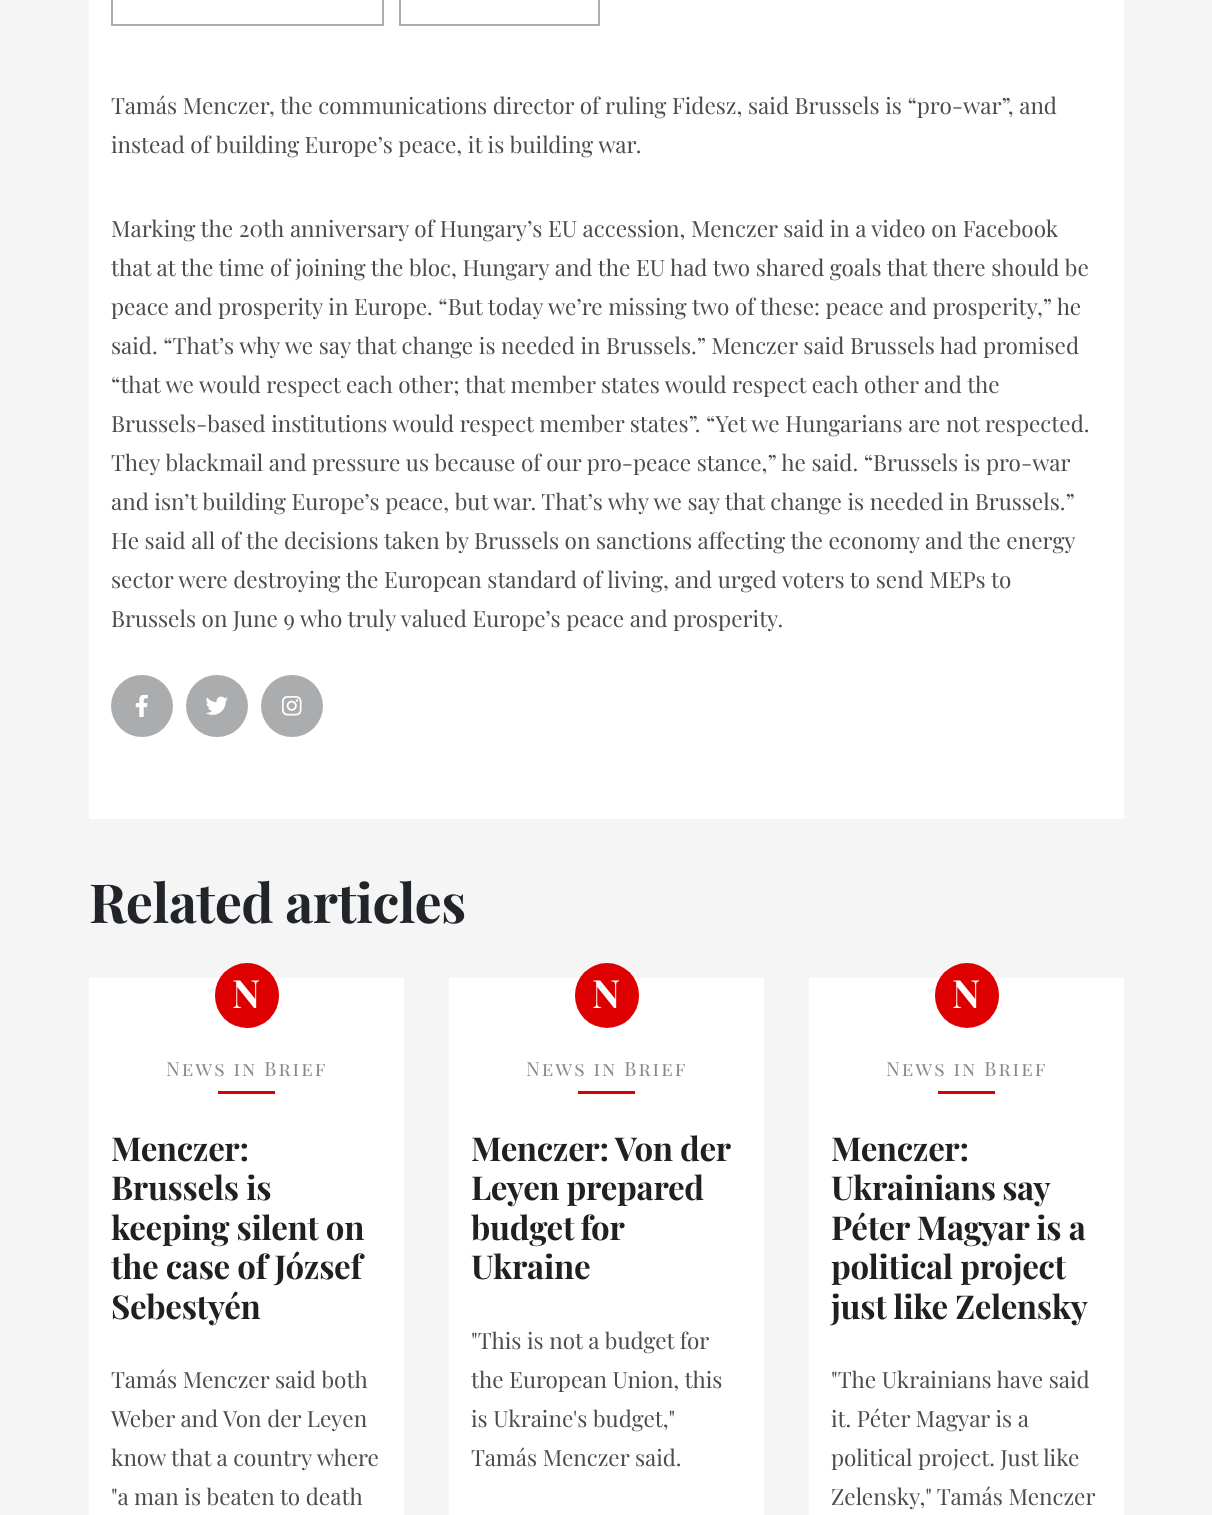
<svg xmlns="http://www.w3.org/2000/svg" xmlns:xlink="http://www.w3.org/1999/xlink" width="1212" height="1515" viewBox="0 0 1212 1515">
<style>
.cls-1{font:22.5px Playfair Display;fill:#4a4c4f}
.cls-2{font:bold 54px Playfair Display;letter-spacing:-0.5px;fill:#212529}
.cls-3{font:bold 39px Playfair Display;fill:#ffffff}
.cls-4{font:19.5px Playfair Display SC;letter-spacing:2px;fill:#888888}
.cls-5{font:bold 33px Playfair Display;letter-spacing:-0.3px;fill:#201f22}
</style>
<rect width="100%" height="100%" fill="#f5f5f5"/>
<rect fill="#ffffff" x="89" y="0" width="1035" height="819"/>
<rect fill="none" stroke="#abacae" stroke-width="2" x="112" y="-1" width="271" height="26"/>
<rect fill="none" stroke="#abacae" stroke-width="2" x="400" y="-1" width="199" height="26"/>
<circle fill="#abacae" cx="142" cy="706" r="31"/>
<image xlink:href="image0.png" x="135" y="695" width="13" height="22"/>
<circle fill="#abacae" cx="217" cy="706" r="31"/>
<image xlink:href="image1.png" x="205" y="696" width="23" height="19"/>
<circle fill="#abacae" cx="292" cy="706" r="31"/>
<image xlink:href="image2.png" x="282" y="696" width="20" height="20"/>
<rect fill="#ffffff" x="89" y="978" width="315" height="537"/>
<rect fill="#de0000" x="215" y="963" width="64" height="65" rx="32"/>
<rect fill="#de0000" x="218" y="1091" width="57" height="3"/>
<rect fill="#ffffff" x="449" y="978" width="315" height="537"/>
<rect fill="#de0000" x="575" y="963" width="64" height="65" rx="32"/>
<rect fill="#de0000" x="578" y="1091" width="57" height="3"/>
<rect fill="#ffffff" x="809" y="978" width="315" height="537"/>
<rect fill="#de0000" x="935" y="963" width="64" height="65" rx="32"/>
<rect fill="#de0000" x="938" y="1091" width="57" height="3"/>
<text class="cls-1"><tspan x="111" y="114">Tamás Menczer, the communications director of ruling Fidesz, said Brussels is “pro-war”, and</tspan><tspan x="111" y="153">instead of building Europe’s peace, it is building war.</tspan></text>
<text class="cls-1"><tspan x="111" y="237">Marking the 20th anniversary of Hungary’s EU accession, Menczer said in a video on Facebook</tspan><tspan x="111" y="276">that at the time of joining the bloc, Hungary and the EU had two shared goals that there should be</tspan><tspan x="111" y="315">peace and prosperity in Europe. “But today we’re missing two of these: peace and prosperity,” he</tspan><tspan x="111" y="354">said. “That’s why we say that change is needed in Brussels.” Menczer said Brussels had promised</tspan><tspan x="111" y="393">“that we would respect each other; that member states would respect each other and the</tspan><tspan x="111" y="432">Brussels-based institutions would respect member states”. “Yet we Hungarians are not respected.</tspan><tspan x="111" y="471">They blackmail and pressure us because of our pro-peace stance,” he said. “Brussels is pro-war</tspan><tspan x="111" y="510">and isn’t building Europe’s peace, but war. That’s why we say that change is needed in Brussels.”</tspan><tspan x="111" y="549">He said all of the decisions taken by Brussels on sanctions affecting the economy and the energy</tspan><tspan x="111" y="588">sector were destroying the European standard of living, and urged voters to send MEPs to</tspan><tspan x="111" y="627">Brussels on June 9 who truly valued Europe’s peace and prosperity.</tspan></text>
<text class="cls-2" x="89" y="923">Related articles</text>
<text class="cls-3" x="232" y="1008">N</text>
<text class="cls-4" x="166" y="1076">News in Brief</text>
<text class="cls-5"><tspan x="111" y="1161">Menczer:</tspan><tspan x="111" y="1200">Brussels is</tspan><tspan x="111" y="1240">keeping silent on</tspan><tspan x="111" y="1279">the case of József</tspan><tspan x="111" y="1319">Sebestyén</tspan></text>
<text class="cls-1"><tspan x="111" y="1388">Tamás Menczer said both</tspan><tspan x="111" y="1427">Weber and Von der Leyen</tspan><tspan x="111" y="1466">know that a country where</tspan><tspan x="111" y="1505">"a man is beaten to death</tspan></text>
<text class="cls-3" x="592" y="1008">N</text>
<text class="cls-4" x="526" y="1076">News in Brief</text>
<text class="cls-5"><tspan x="471" y="1161">Menczer: Von der</tspan><tspan x="471" y="1200">Leyen prepared</tspan><tspan x="471" y="1240" word-spacing="-1">budget for</tspan><tspan x="471" y="1279">Ukraine</tspan></text>
<text class="cls-1"><tspan x="471" y="1349">"This is not a budget for</tspan><tspan x="471" y="1388">the European Union, this</tspan><tspan x="471" y="1427">is Ukraine's budget,"</tspan><tspan x="471" y="1466">Tamás Menczer said.</tspan></text>
<text class="cls-3" x="952" y="1008">N</text>
<text class="cls-4" x="886" y="1076">News in Brief</text>
<text class="cls-5"><tspan x="831" y="1161">Menczer:</tspan><tspan x="831" y="1200" word-spacing="-1">Ukrainians say</tspan><tspan x="831" y="1240">Péter Magyar is a</tspan><tspan x="831" y="1279">political project</tspan><tspan x="831" y="1319">just like Zelensky</tspan></text>
<text class="cls-1"><tspan x="831" y="1388">"The Ukrainians have said</tspan><tspan x="831" y="1427">it. Péter Magyar is a</tspan><tspan x="831" y="1466">political project. Just like</tspan><tspan x="831" y="1505">Zelensky," Tamás Menczer</tspan></text>
</svg>
